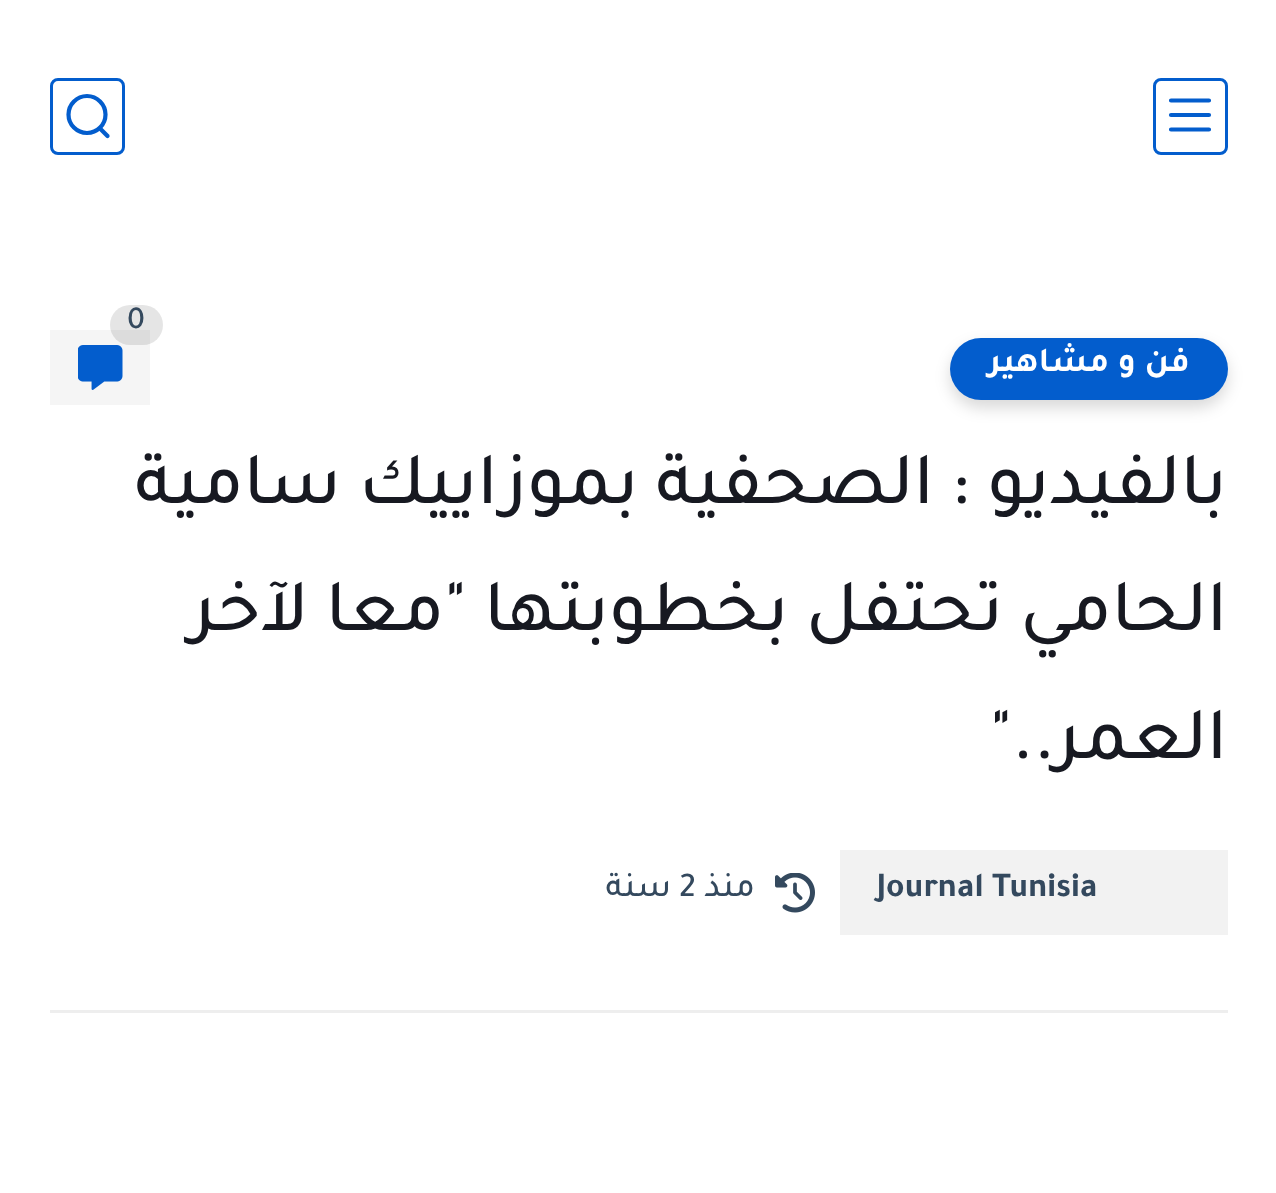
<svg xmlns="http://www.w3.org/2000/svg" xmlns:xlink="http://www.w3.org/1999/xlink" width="1276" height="1193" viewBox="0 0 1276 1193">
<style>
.cls-1{font:500 32px Tajawal;fill:#34495e}
.cls-2{font:bold 35px Tajawal;direction:rtl;fill:#ffffff}
.cls-3{font:500 75px Tajawal;direction:rtl;fill:#171921}
.cls-4{font:bold 35px Tajawal;fill:#34495e}
.cls-5{font:500 35px Tajawal;direction:rtl;fill:#34495e}
.cls-6{font:500 35px Tajawal;fill:#34495e}
</style>
<rect width="100%" height="100%" fill="#ffffff"/>
<rect fill="none" stroke="#035dcd" stroke-width="3" x="1154.5" y="79.5" width="72" height="74" rx="6.5"/>
<path fill="none" stroke="#035dcd" stroke-width="4.2" stroke-linecap="round" stroke-linejoin="round" d="M1171 115H1209M1171 100.5H1209M1171 129.5H1209"/>
<rect fill="none" stroke="#035dcd" stroke-width="3" x="51.5" y="79.5" width="72" height="74" rx="6.5"/>
<circle fill="none" stroke="#035dcd" stroke-width="4.2" cx="87" cy="114.5" r="18.5"/>
<path fill="none" stroke="#035dcd" stroke-width="4.2" stroke-linecap="round" stroke-linejoin="round" d="M100 128.5L107.5 136"/>
<rect fill="#eeeeee" x="50" y="1010" width="1178" height="3"/>
<rect fill="#000000" fill-opacity="0.04" x="50" y="330" width="100" height="75"/>
<rect fill="#000000" fill-opacity="0.1" x="110" y="305" width="53" height="40" rx="20"/>
<image xlink:href="image0.png" x="78" y="345" width="45" height="45"/>
<rect fill="#000000" fill-opacity="0.15" filter="blur(7.5px)" x="950" y="345" width="278" height="63" rx="31.5"/>
<rect fill="#035dcd" x="950" y="338" width="278" height="62" rx="31"/>
<rect fill="#000000" fill-opacity="0.05" x="840" y="850" width="388" height="85"/>
<image xlink:href="image1.png" x="775" y="873" width="40" height="40"/>
<text class="cls-1" x="127" y="328">0</text>
<text class="cls-2" x="1190" y="371">فن و مشاهير</text>
<text class="cls-3"><tspan x="1227" y="503">بالفيديو : الصحفية بموزاييك سامية</tspan><tspan x="1227" y="630">الحامي تحتفل بخطوبتها "معا لآخر</tspan><tspan x="1227" y="758">العمر.."</tspan></text>
<text class="cls-4" x="877" y="896">Journal Tunisia</text>
<text class="cls-5" x="755" y="896">منذ</text>
<text class="cls-6" x="679" y="896">2</text>
<text class="cls-5" x="671" y="896">سنة</text>
</svg>
